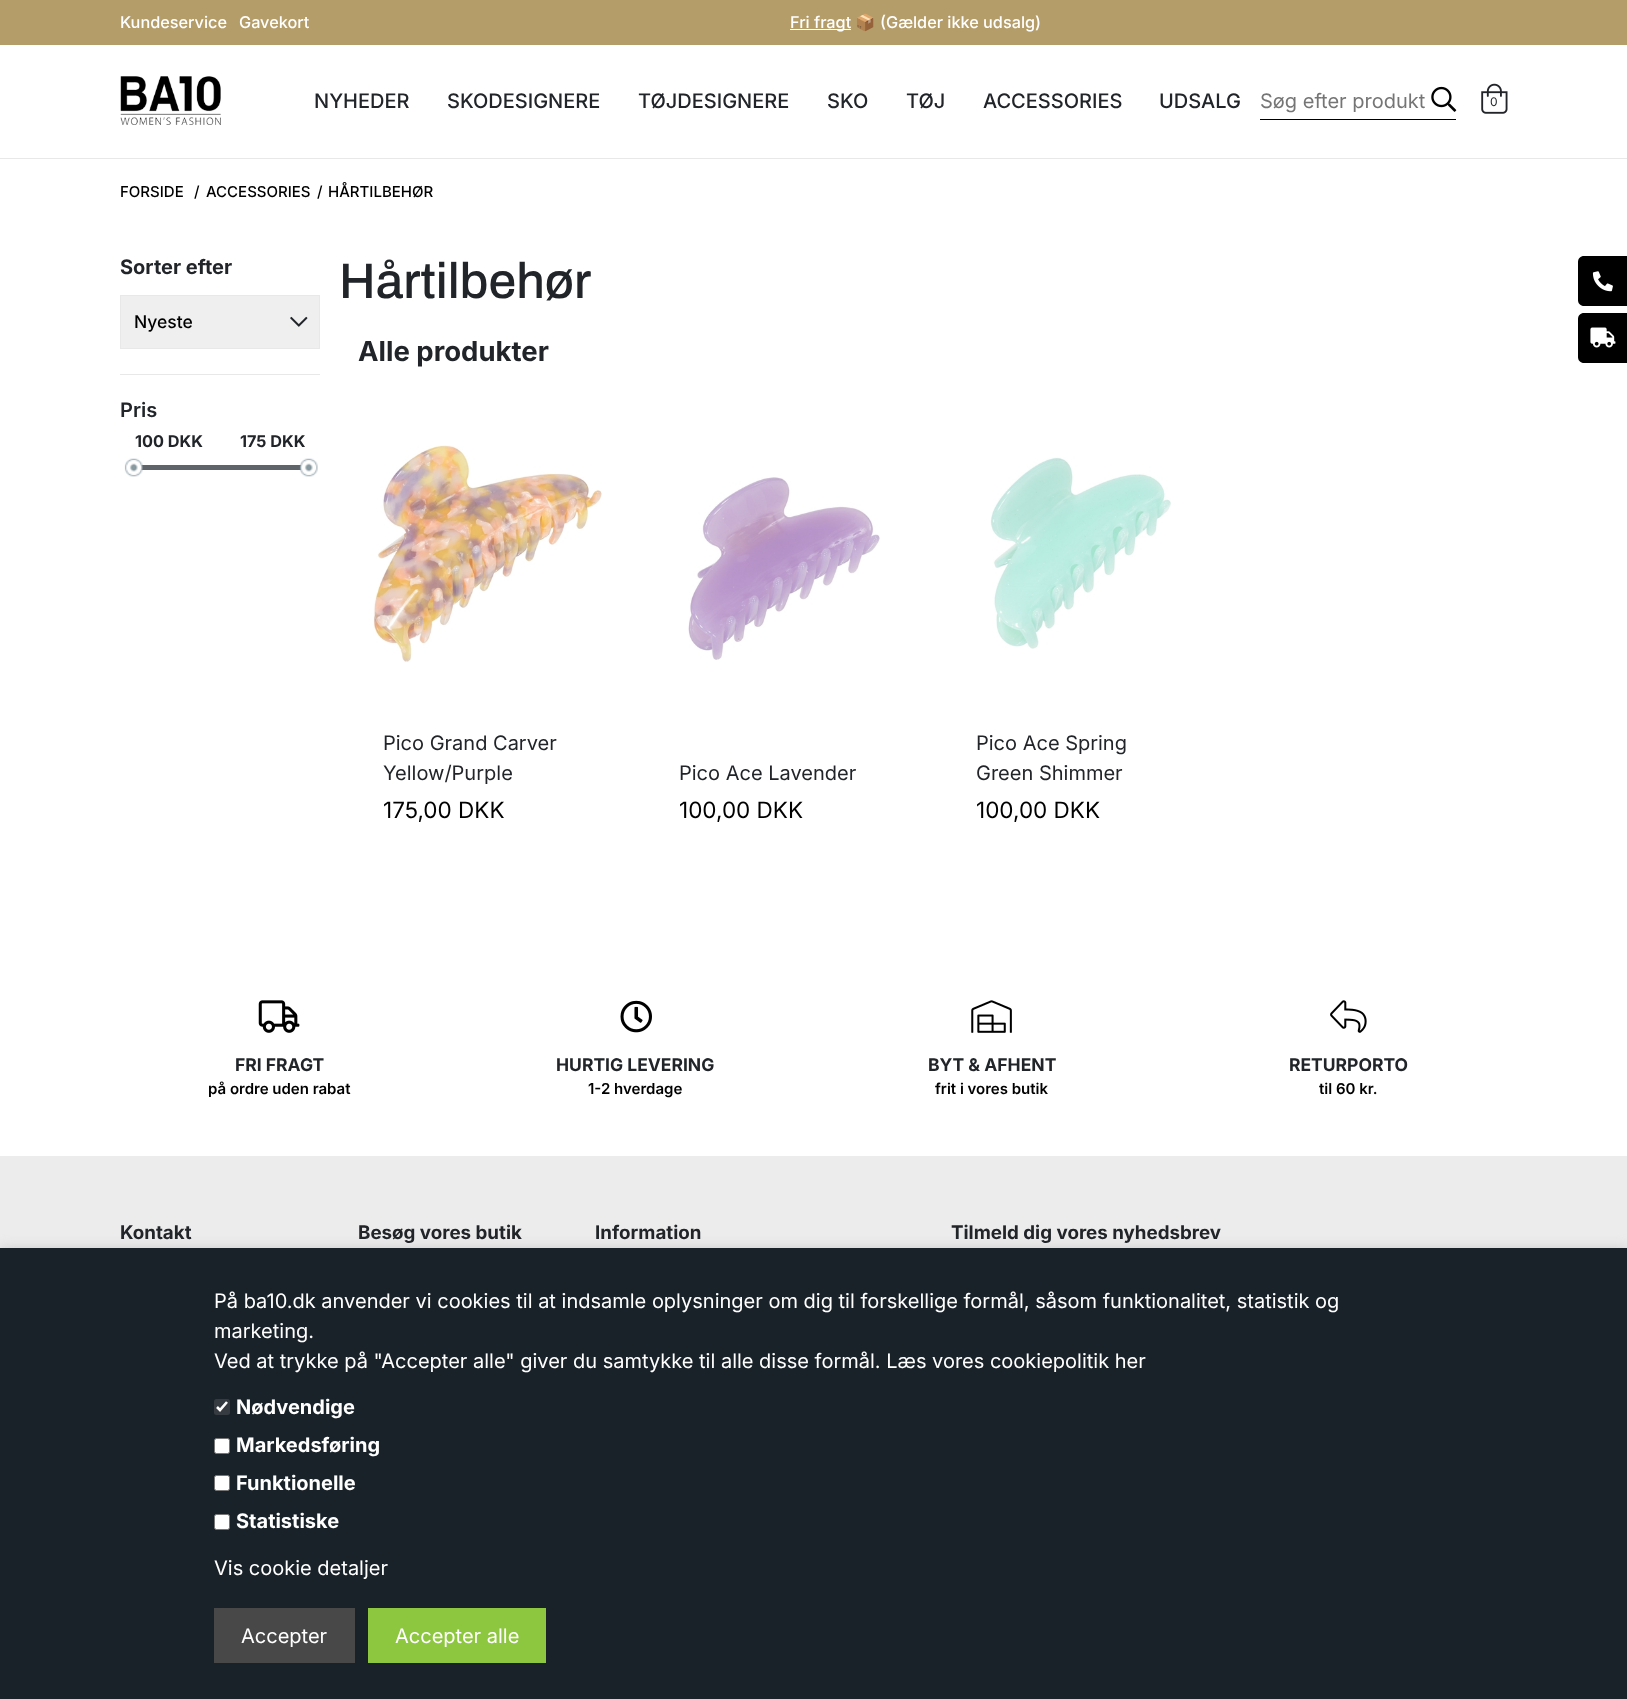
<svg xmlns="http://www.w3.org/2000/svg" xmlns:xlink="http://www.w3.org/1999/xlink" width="1627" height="1699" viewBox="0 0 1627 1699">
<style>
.cls-1{font:500 16.25px Inter;fill:#ffffff}
.cls-2{font:16.25px Noto Color Emoji;fill:#ffffff}
.cls-3{font:500 20px Inter;fill:#212529}
.cls-4{font:20px Inter;fill:#757575}
.cls-5{font:12px Inter;fill:#212529}
.cls-6{font:500 15px Inter;fill:#000000}
.cls-7{font:bold 20px Inter;fill:#212529}
.cls-8{font:500 17.5px Inter;fill:#000000}
.cls-9{font:600 20px Inter;fill:#212529}
.cls-10{font:bold 16.25px Inter;fill:#212529}
.cls-11{font:500 50px Archivo;fill:#212529}
.cls-12{font:bold 27.5px Inter;fill:#212529}
.cls-13{font:20px Inter;fill:#212529}
.cls-14{font:22.5px Inter;fill:#000000}
.cls-15{font:bold 17.5px Inter;fill:#212529}
.cls-16{font:600 15px Inter;fill:#000000}
.cls-17{font:bold 18.75px Inter;fill:#212529}
.cls-18{font:20px Inter;fill:#ffffff}
.cls-19{font:bold 20px Inter;fill:#ffffff}
</style>
<rect width="100%" height="100%" fill="#ffffff"/>
<rect fill="#b59d6a" x="0" y="0" width="1627" height="45"/>
<rect fill="#ffffff" x="790" y="29" width="61" height="1"/>
<rect fill="#e8e8e8" x="0" y="158" width="1627" height="1"/>
<image xlink:href="image0.png" x="120" y="76" width="101" height="49"/>
<rect fill="#000000" x="1260" y="119" width="196" height="1"/>
<image xlink:href="image1.png" x="1431" y="86" width="26" height="26"/>
<image xlink:href="image2.png" x="1481" y="83" width="27" height="31"/>
<rect fill="#efefef" stroke="#e8e8e8" x="120.5" y="295.5" width="199" height="53"/>
<image xlink:href="image3.png" x="290" y="316" width="18" height="11"/>
<rect fill="#e8e8e8" x="120" y="374" width="200" height="1"/>
<rect fill="#5e646a" x="133" y="465" width="175" height="5"/>
<image xlink:href="image4.png" x="124" y="458" width="19" height="19"/>
<image xlink:href="image5.png" x="299" y="458" width="19" height="19"/>
<image xlink:href="image6.png" x="373" y="445" width="229" height="217"/>
<image xlink:href="image7.png" x="688" y="477" width="192" height="183"/>
<image xlink:href="image8.png" x="990" y="457" width="181" height="192"/>
<path fill="#000000" d="M1584 256H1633V306H1584C1580.5 306 1578 303.5 1578 300V262C1578 258.5 1580.5 256 1584 256Z"/>
<image xlink:href="image9.png" x="1592" y="271" width="21" height="21"/>
<path fill="#000000" d="M1584 313H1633V363H1584C1580.5 363 1578 360.5 1578 357V319C1578 315.5 1580.5 313 1584 313Z"/>
<image xlink:href="image10.png" x="1590" y="327" width="26" height="21"/>
<image xlink:href="image11.png" x="258" y="1000" width="42" height="33"/>
<image xlink:href="image12.png" x="620" y="1000" width="32" height="33"/>
<image xlink:href="image13.png" x="971" y="1000" width="41" height="33"/>
<image xlink:href="image14.png" x="1330" y="1000" width="37" height="33"/>
<rect fill="#ececec" x="0" y="1156" width="1627" height="92"/>
<rect fill="#cccccc" filter="blur(6px)" x="0" y="1248" width="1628" height="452"/>
<rect fill="#192229" x="0" y="1248" width="1627" height="451"/>
<rect fill="#353b40" x="214" y="1399" width="16" height="16" rx="2.5"/>
<path fill="none" stroke="#ffffff" stroke-width="2.6" d="M217 1407L220 1410L227 1402"/>
<rect fill="#ffffff" stroke="#767676" x="214.5" y="1438.5" width="15" height="15" rx="2"/>
<rect fill="#ffffff" stroke="#767676" x="214.5" y="1475.5" width="15" height="15" rx="2"/>
<rect fill="#ffffff" stroke="#767676" x="214.5" y="1514.5" width="15" height="15" rx="2"/>
<rect fill="#484848" x="214" y="1608" width="141" height="55"/>
<rect fill="#8dc63f" x="368" y="1608" width="178" height="55"/>
<text class="cls-1" x="120" y="28">Kundeservice</text>
<text class="cls-1" x="239" y="28">Gavekort</text>
<text class="cls-1" x="790" y="28">Fri fragt</text>
<text class="cls-2" x="855" y="28">📦</text>
<text class="cls-1" x="880" y="28">(Gælder ikke udsalg)</text>
<text class="cls-3" x="314" y="108">NYHEDER</text>
<text class="cls-3" x="447" y="108">SKODESIGNERE</text>
<text class="cls-3" x="638" y="108">TØJDESIGNERE</text>
<text class="cls-3" x="827" y="108">SKO</text>
<text class="cls-3" x="906" y="108">TØJ</text>
<text class="cls-3" x="983" y="108">ACCESSORIES</text>
<text class="cls-3" x="1159" y="108">UDSALG</text>
<text class="cls-4" x="1260" y="108">Søg efter produkt</text>
<text class="cls-5" x="1490" y="106">0</text>
<text class="cls-6" x="120" y="197">FORSIDE</text>
<text class="cls-6" x="194" y="197">/</text>
<text class="cls-6" x="206" y="197">ACCESSORIES</text>
<text class="cls-6" x="317" y="197">/</text>
<text class="cls-6" x="328" y="197">HÅRTILBEHØR</text>
<text class="cls-7" x="120" y="274">Sorter efter</text>
<text class="cls-8" x="134" y="328">Nyeste</text>
<text class="cls-9" x="120" y="417">Pris</text>
<text class="cls-10" x="135" y="447">100 DKK</text>
<text class="cls-10" x="240" y="447">175 DKK</text>
<text class="cls-11" x="339" y="298">Hårtilbehør</text>
<text class="cls-12" x="358" y="361">Alle produkter</text>
<text class="cls-13"><tspan x="383" y="750">Pico Grand Carver</tspan><tspan x="383" y="780">Yellow/Purple</tspan></text>
<text class="cls-14" x="383" y="818">175,00 DKK</text>
<text class="cls-13" x="679" y="780">Pico Ace Lavender</text>
<text class="cls-14" x="679" y="818">100,00 DKK</text>
<text class="cls-13"><tspan x="976" y="750">Pico Ace Spring</tspan><tspan x="976" y="780">Green Shimmer</tspan></text>
<text class="cls-14" x="976" y="818">100,00 DKK</text>
<text class="cls-15" x="235" y="1071">FRI FRAGT</text>
<text class="cls-16" x="208" y="1094">på ordre uden rabat</text>
<text class="cls-15" x="556" y="1071">HURTIG LEVERING</text>
<text class="cls-16" x="588" y="1094">1-2 hverdage</text>
<text class="cls-15" x="928" y="1071">BYT &amp; AFHENT</text>
<text class="cls-16" x="935" y="1094">frit i vores butik</text>
<text class="cls-15" x="1289" y="1071">RETURPORTO</text>
<text class="cls-16" x="1319" y="1094">til 60 kr.</text>
<text class="cls-17" x="120" y="1239">Kontakt</text>
<text class="cls-17" x="358" y="1239">Besøg vores butik</text>
<text class="cls-17" x="595" y="1239">Information</text>
<text class="cls-17" x="951" y="1239">Tilmeld dig vores nyhedsbrev</text>
<text class="cls-18"><tspan x="214" y="1308">På ba10.dk anvender vi cookies til at indsamle oplysninger om dig til forskellige formål, såsom funktionalitet, statistik og</tspan><tspan x="214" y="1338">marketing.</tspan><tspan x="214" y="1368">Ved at trykke på "Accepter alle" giver du samtykke til alle disse formål. Læs vores cookiepolitik her</tspan></text>
<text class="cls-19"><tspan x="236" y="1414">Nødvendige</tspan><tspan x="236" y="1452">Markedsføring</tspan><tspan x="236" y="1490">Funktionelle</tspan><tspan x="236" y="1528">Statistiske</tspan></text>
<text class="cls-18" x="214" y="1575">Vis cookie detaljer</text>
<text class="cls-18" x="241" y="1643">Accepter</text>
<text class="cls-18" x="395" y="1643">Accepter alle</text>
</svg>
